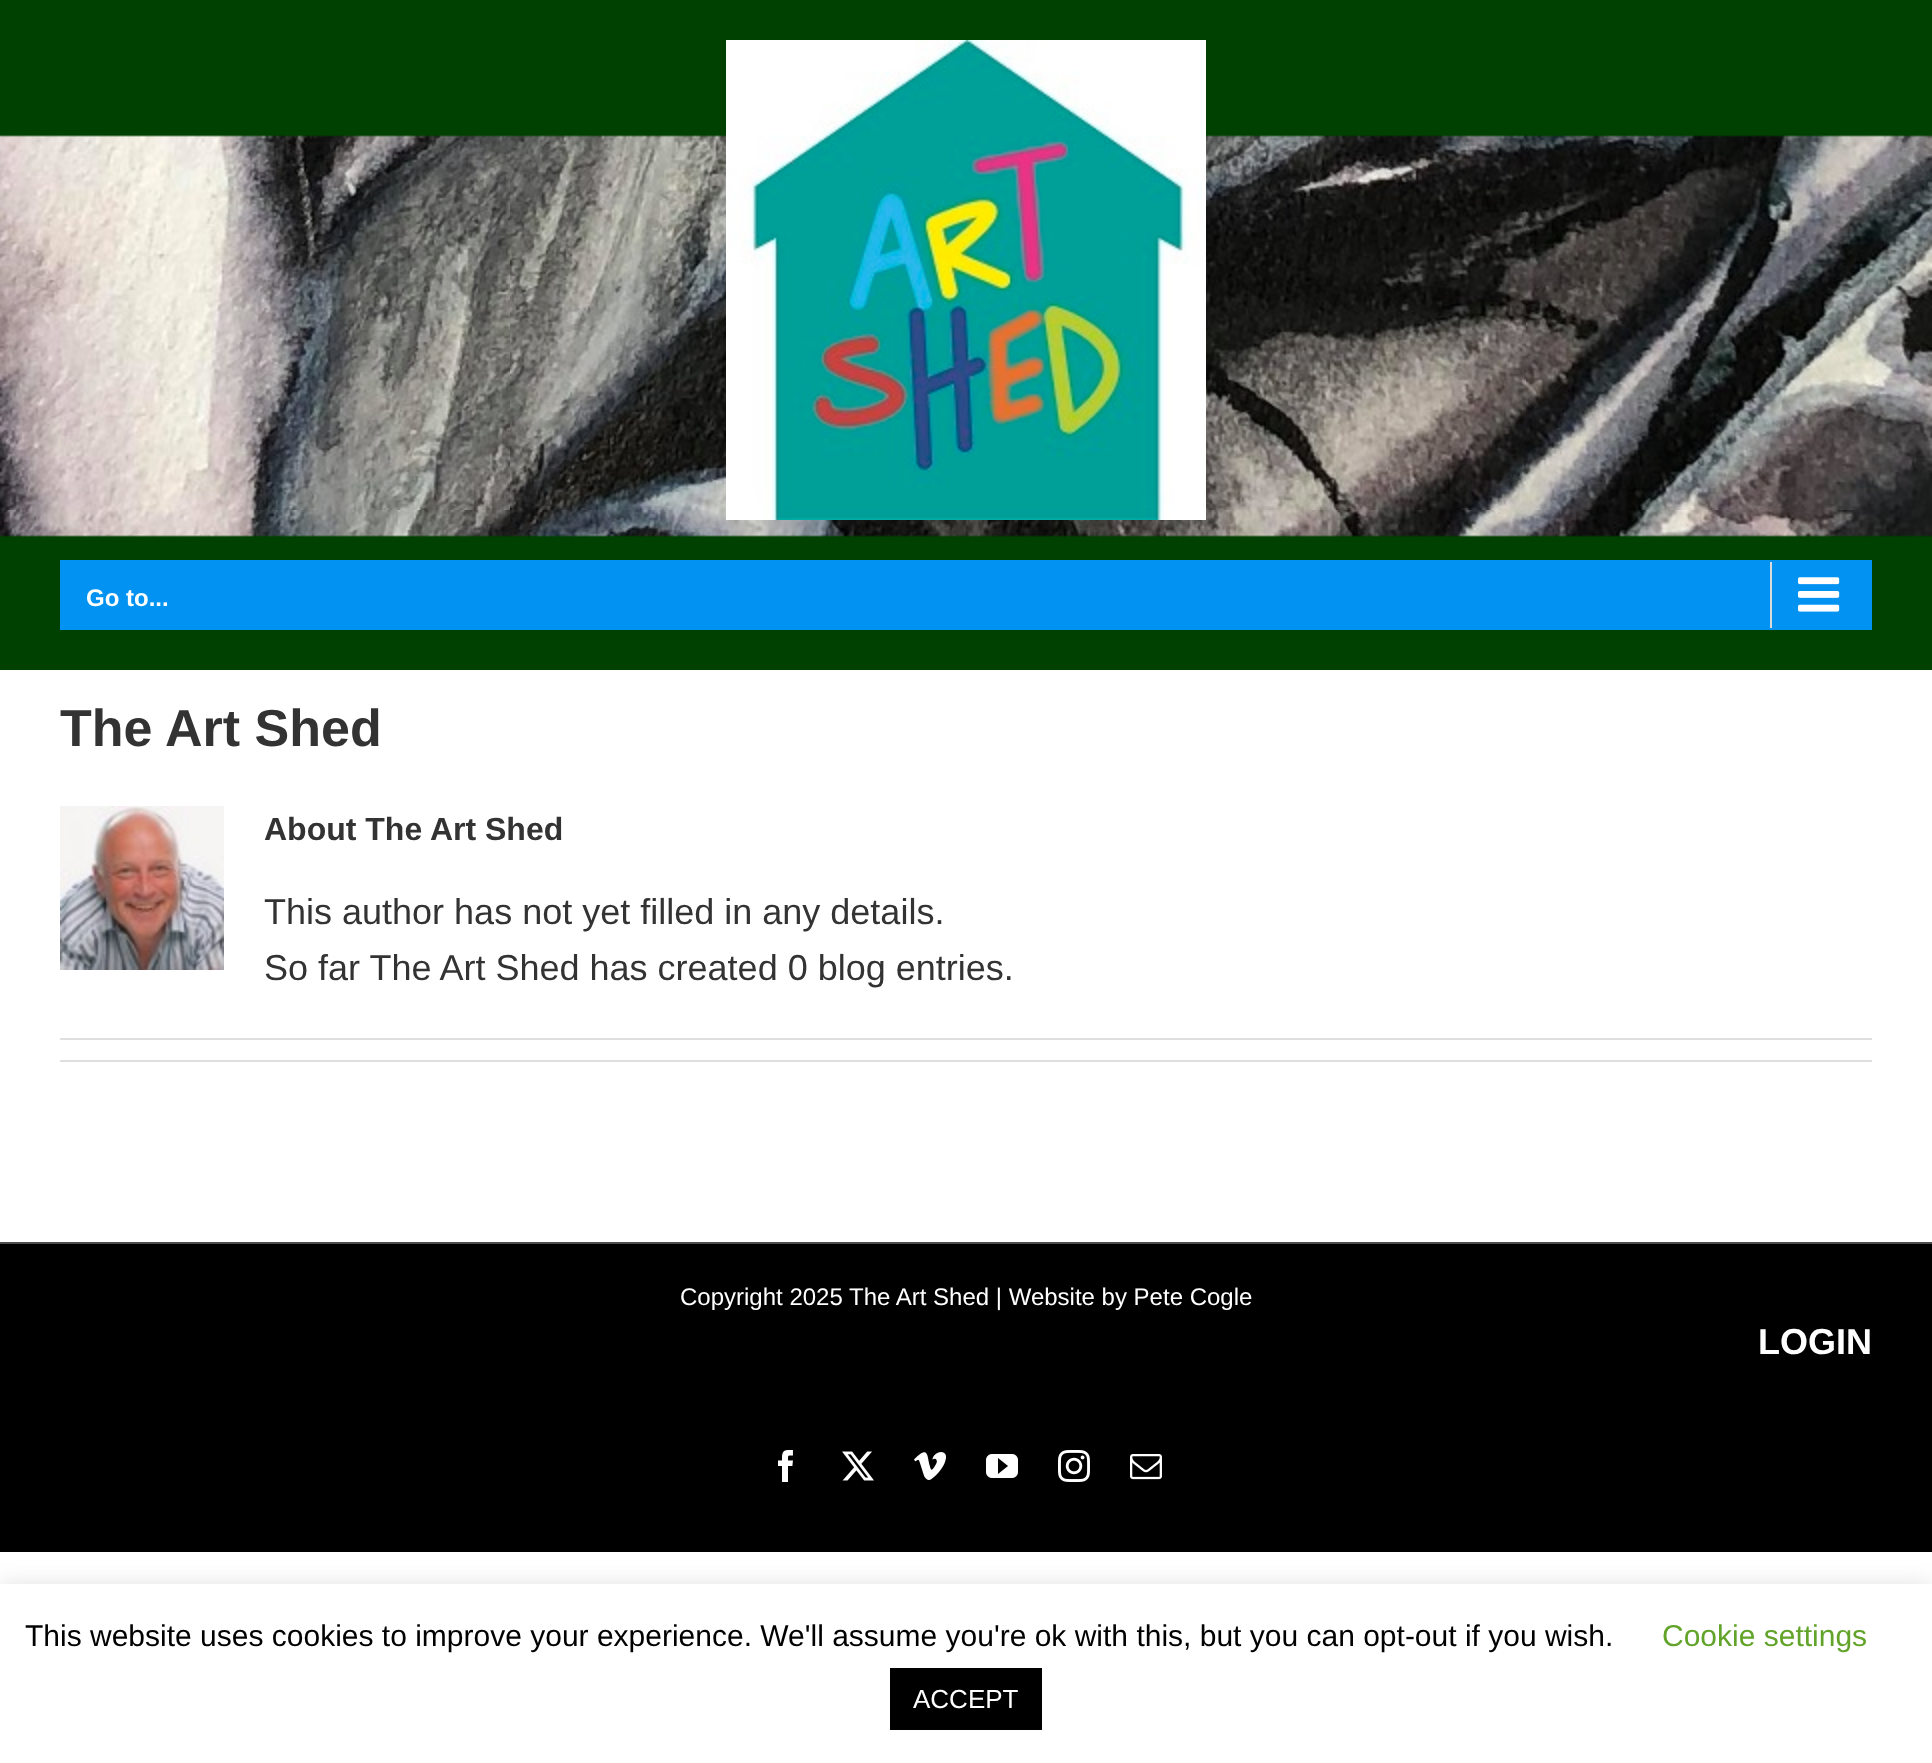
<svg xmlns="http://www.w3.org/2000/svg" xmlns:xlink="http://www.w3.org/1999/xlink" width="1932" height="1763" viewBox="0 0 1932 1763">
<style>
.cls-1{font:bold 24px Liberation Sans;fill:#ffffff}
.cls-2{font:bold 52px Liberation Sans;fill:#333333}
.cls-3{font:bold 32px Liberation Sans;fill:#333333}
.cls-4{font:36px Liberation Sans;fill:#333333}
.cls-5{font:24px Liberation Sans;fill:#ffffff}
.cls-6{font:bold 36px Liberation Sans;fill:#ffffff}
.cls-7{font:30px Liberation Sans;fill:#000000}
.cls-8{font:30px Liberation Sans;fill:#62a329}
.cls-9{font:26px Liberation Sans;fill:#ffffff}
</style>
<rect width="100%" height="100%" fill="#ffffff"/>
<rect fill="#004000" x="0" y="0" width="1932" height="670"/>
<image xlink:href="image0.png" x="0" y="135" width="1932" height="402"/>
<image xlink:href="image1.png" x="726" y="40" width="480" height="480"/>
<rect fill="#0292f2" x="60" y="560" width="1812" height="70"/>
<rect fill="#dadada" x="1770" y="562" width="2" height="66"/>
<image xlink:href="image2.png" x="1798" y="577" width="42" height="35"/>
<image xlink:href="image3.png" x="60" y="806" width="164" height="164"/>
<rect fill="#e0dede" x="60" y="1038" width="1812" height="2"/>
<rect fill="#e0dede" x="60" y="1060" width="1812" height="2"/>
<rect fill="#000000" x="0" y="1244" width="1932" height="308"/>
<rect fill="#4b4c4d" x="0" y="1242" width="1932" height="2"/>
<image xlink:href="image4.png" x="778" y="1450" width="15" height="32"/>
<image xlink:href="image5.png" x="842" y="1451" width="32" height="30"/>
<image xlink:href="image6.png" x="914" y="1452" width="32" height="28"/>
<image xlink:href="image7.png" x="986" y="1454" width="32" height="24"/>
<image xlink:href="image8.png" x="1058" y="1450" width="32" height="32"/>
<image xlink:href="image9.png" x="1130" y="1454" width="32" height="26"/>
<rect fill="#acabab" fill-opacity="0.3" filter="blur(10px)" x="0" y="1582" width="1932" height="180"/>
<rect fill="#ffffff" x="0" y="1584" width="1932" height="179"/>
<rect fill="#000000" x="890" y="1668" width="152" height="62"/>
<text class="cls-1" x="86" y="606">Go to...</text>
<text class="cls-2" x="60" y="746">The Art Shed</text>
<text class="cls-3" x="264" y="840">About The Art Shed</text>
<text class="cls-4"><tspan x="264" y="924">This author has not yet filled in any details.</tspan><tspan x="264" y="980">So far The Art Shed has created 0 blog entries.</tspan></text>
<text class="cls-5" x="680" y="1305">Copyright 2025 The Art Shed | Website by Pete Cogle</text>
<text class="cls-6" x="1758" y="1354">LOGIN</text>
<text class="cls-7" x="25" y="1646">This website uses cookies to improve your experience. We'll assume you're ok with this, but you can opt-out if you wish.</text>
<text class="cls-8" x="1662" y="1646">Cookie settings</text>
<text class="cls-9" x="913" y="1708">ACCEPT</text>
</svg>
